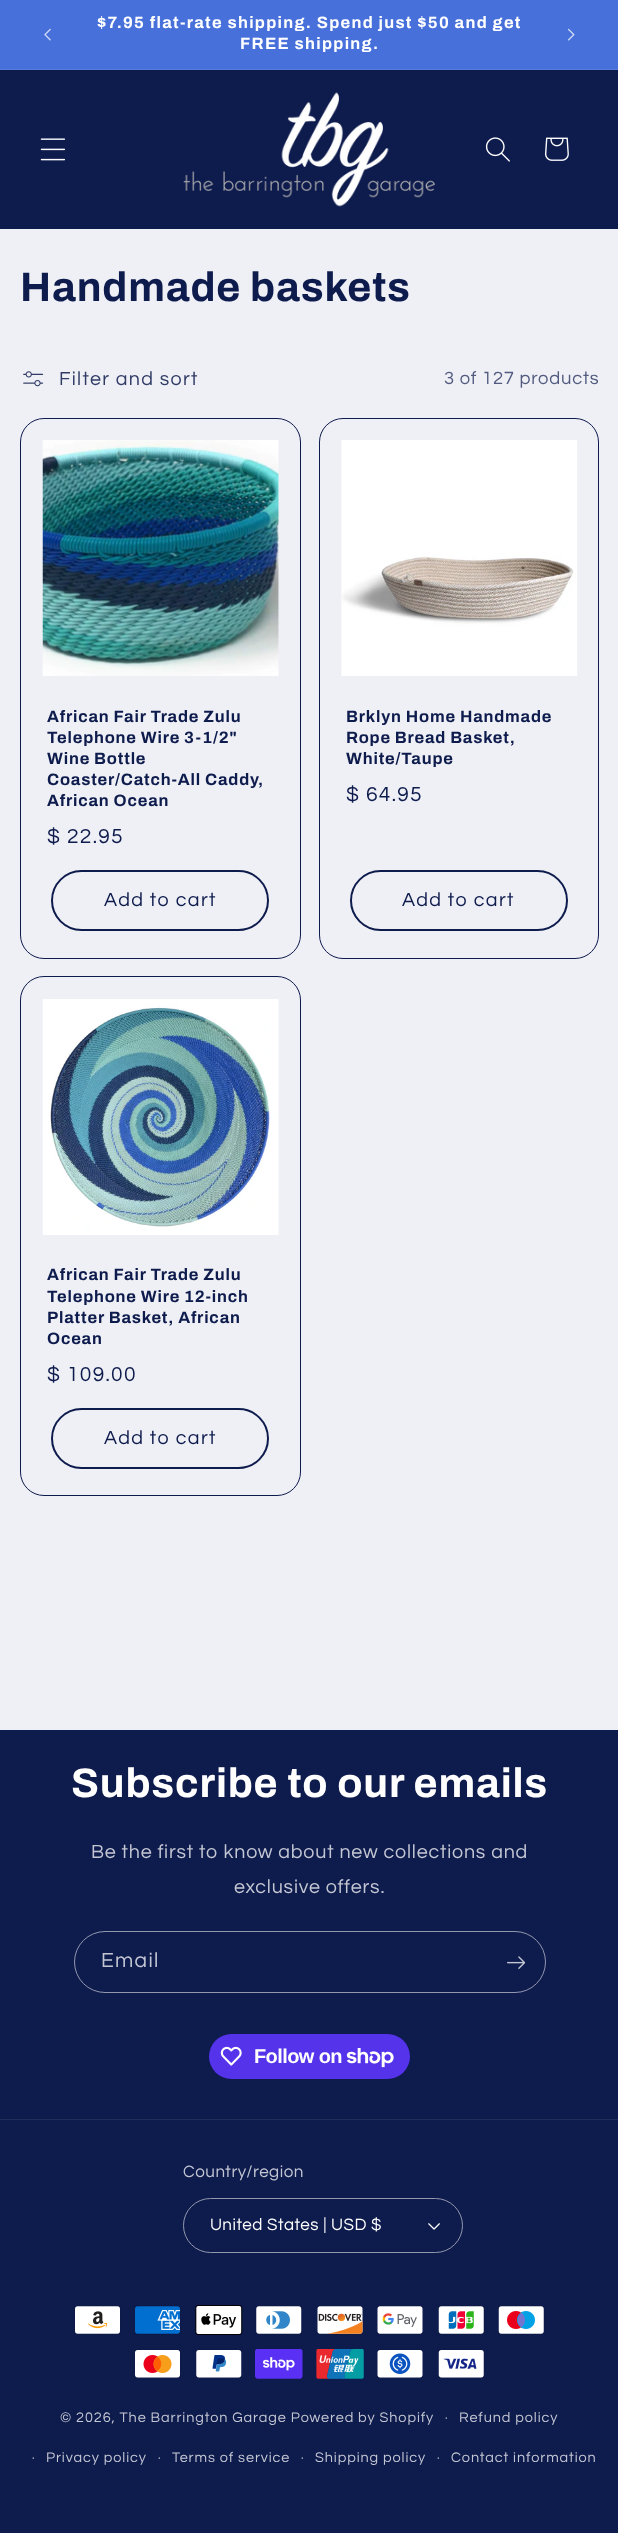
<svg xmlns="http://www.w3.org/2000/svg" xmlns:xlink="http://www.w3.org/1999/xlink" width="618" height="2533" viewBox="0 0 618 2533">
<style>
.cls-1{font:bold 16.5px Archivo;letter-spacing:1.3px;fill:#ffffff}
.cls-2{font:bold 41.25px Archivo;letter-spacing:0.8px;fill:#0e1b4d}
.cls-3{font:19.7px Questrial;letter-spacing:1.3px;fill:#303b66}
.cls-4{font:18.4px Questrial;letter-spacing:0.8px;fill:#525b7f}
.cls-5{font:bold 16.5px Archivo;letter-spacing:0.8px;fill:#0e1b4d}
.cls-6{font:21px Questrial;letter-spacing:1.3px;fill:#0e1b4d}
.cls-7{font:19.7px Questrial;letter-spacing:1.3px;fill:#0e1b4d}
.cls-8{font:bold 41.25px Archivo;letter-spacing:0.8px;fill:#ffffff}
.cls-9{font:19.7px Questrial;letter-spacing:0.8px;fill:#c3c6d3}
.cls-10{font:21px Questrial;letter-spacing:1.3px;fill:#c3c6d3}
.cls-11{font:bold 20px Liberation Sans;letter-spacing:-0.6px;fill:#ffffff}
.cls-12{font:17px Questrial;letter-spacing:0.5px;fill:#c3c6d3}
.cls-13{font:17px Questrial;letter-spacing:0.5px;fill:#ffffff}
.cls-14{font:13px Questrial;letter-spacing:0.9px;fill:#c3c6d3}
.cls-15{font:14.45px Questrial;letter-spacing:0.9px;fill:#c3c6d3}
</style>
<rect width="100%" height="100%" fill="#eff0f5"/>
<rect fill="#4770db" x="0" y="0" width="618" height="69"/>
<rect fill="#567bde" x="0" y="69" width="618" height="1"/>
<image xlink:href="image0.png" x="44" y="28" width="7" height="13"/>
<image xlink:href="image1.png" x="568" y="28" width="7" height="13"/>
<rect fill="#0e1b4d" x="0" y="70" width="618" height="159"/>
<image xlink:href="image2.png" x="40" y="138" width="26" height="23"/>
<image xlink:href="image3.png" x="183" y="92" width="252" height="115"/>
<image xlink:href="image4.png" x="485" y="137" width="25" height="25"/>
<image xlink:href="image5.png" x="545" y="137" width="24" height="24"/>
<image xlink:href="image6.png" x="23" y="371" width="21" height="16"/>
<rect fill="none" stroke="#0e1b4d" x="20.5" y="418.5" width="280" height="540" rx="23.5"/>
<image xlink:href="image7.png" x="42" y="440" width="237" height="236"/>
<rect fill="none" stroke="#0e1b4d" stroke-width="2" x="52" y="871" width="216" height="59" rx="29.5"/>
<rect fill="none" stroke="#0e1b4d" x="319.5" y="418.5" width="279" height="540" rx="23.5"/>
<image xlink:href="image8.png" x="341" y="440" width="237" height="236"/>
<rect fill="none" stroke="#0e1b4d" stroke-width="2" x="351" y="871" width="216" height="59" rx="29.5"/>
<rect fill="none" stroke="#0e1b4d" x="20.5" y="976.5" width="280" height="519" rx="23.5"/>
<image xlink:href="image9.png" x="42" y="999" width="237" height="236"/>
<rect fill="none" stroke="#0e1b4d" stroke-width="2" x="52" y="1409" width="216" height="59" rx="29.5"/>
<rect fill="#0e1b4d" x="0" y="1730" width="618" height="803"/>
<rect fill="none" stroke="#9398af" x="74.5" y="1931.5" width="471" height="61" rx="30.5"/>
<image xlink:href="image10.png" x="507" y="1956" width="18" height="13"/>
<rect fill="#5433eb" x="209" y="2034" width="201" height="45" rx="22.5"/>
<image xlink:href="image11.png" x="220" y="2046" width="22" height="20"/>
<image xlink:href="image12.png" x="346" y="2048" width="48" height="20"/>
<rect fill="#212d5b" x="0" y="2119" width="618" height="1"/>
<image xlink:href="image13.png" x="428" y="2223" width="12" height="7"/>
<rect fill="none" stroke="#9398af" x="183.5" y="2198.5" width="279" height="54" rx="27"/>
<image xlink:href="image14.png" x="74" y="2305" width="47" height="30"/>
<image xlink:href="image15.png" x="134" y="2305" width="47" height="30"/>
<image xlink:href="image16.png" x="195" y="2305" width="48" height="30"/>
<image xlink:href="image17.png" x="255" y="2305" width="47" height="30"/>
<image xlink:href="image18.png" x="317" y="2305" width="46" height="30"/>
<image xlink:href="image19.png" x="377" y="2305" width="46" height="30"/>
<image xlink:href="image20.png" x="438" y="2305" width="47" height="30"/>
<image xlink:href="image21.png" x="498" y="2305" width="47" height="30"/>
<image xlink:href="image22.png" x="134" y="2349" width="47" height="29"/>
<image xlink:href="image23.png" x="195" y="2349" width="47" height="29"/>
<image xlink:href="image24.png" x="255" y="2349" width="48" height="30"/>
<image xlink:href="image25.png" x="316" y="2349" width="48" height="30"/>
<image xlink:href="image26.png" x="377" y="2349" width="46" height="29"/>
<image xlink:href="image27.png" x="438" y="2349" width="47" height="29"/>
<text class="cls-1" x="97" y="28">$7.95 flat-rate shipping. Spend just $50 and get</text>
<text class="cls-1" x="240" y="49">FREE shipping.</text>
<text class="cls-2" x="20" y="301">Handmade baskets</text>
<text class="cls-3" x="59" y="385">Filter and sort</text>
<text class="cls-4" x="444" y="384">3 of 127 products</text>
<text class="cls-5"><tspan x="47" y="722">African Fair Trade Zulu</tspan><tspan x="47" y="743">Telephone Wire 3-1/2"</tspan><tspan x="47" y="764">Wine Bottle</tspan><tspan x="47" y="785">Coaster/Catch-All Caddy,</tspan><tspan x="47" y="806">African Ocean</tspan></text>
<text class="cls-6" x="47" y="843">$ 22.95</text>
<text class="cls-7" x="104" y="906">Add to cart</text>
<text class="cls-5"><tspan x="346" y="722">Brklyn Home Handmade</tspan><tspan x="346" y="743">Rope Bread Basket,</tspan><tspan x="346" y="764">White/Taupe</tspan></text>
<text class="cls-6" x="346" y="801">$ 64.95</text>
<text class="cls-7" x="402" y="906">Add to cart</text>
<text class="cls-5"><tspan x="47" y="1280">African Fair Trade Zulu</tspan><tspan x="47" y="1302">Telephone Wire 12-inch</tspan><tspan x="47" y="1323">Platter Basket, African</tspan><tspan x="47" y="1344">Ocean</tspan></text>
<text class="cls-6" x="47" y="1381">$ 109.00</text>
<text class="cls-7" x="104" y="1444">Add to cart</text>
<text class="cls-8" x="71" y="1797">Subscribe to our emails</text>
<text class="cls-9" x="91" y="1858">Be the first to know about new collections and</text>
<text class="cls-9" x="234" y="1893">exclusive offers.</text>
<text class="cls-10" x="101" y="1967">Email</text>
<text class="cls-11" x="254" y="2063">Follow on</text>
<text class="cls-12" x="183" y="2177">Country/region</text>
<text class="cls-13" x="210" y="2230">United States | USD $</text>
<text class="cls-14" x="445" y="2422">·</text>
<text class="cls-15" x="459" y="2422">Refund policy</text>
<text class="cls-14" x="32" y="2462">·</text>
<text class="cls-15" x="46" y="2462">Privacy policy</text>
<text class="cls-14" x="158" y="2462">·</text>
<text class="cls-15" x="172" y="2462">Terms of service</text>
<text class="cls-14" x="301" y="2462">·</text>
<text class="cls-15" x="315" y="2462">Shipping policy</text>
<text class="cls-14" x="437" y="2462">·</text>
<text class="cls-15" x="451" y="2462">Contact information</text>
<text class="cls-15" x="60" y="2422">© 2026, The Barrington Garage Powered by Shopify</text>
</svg>
